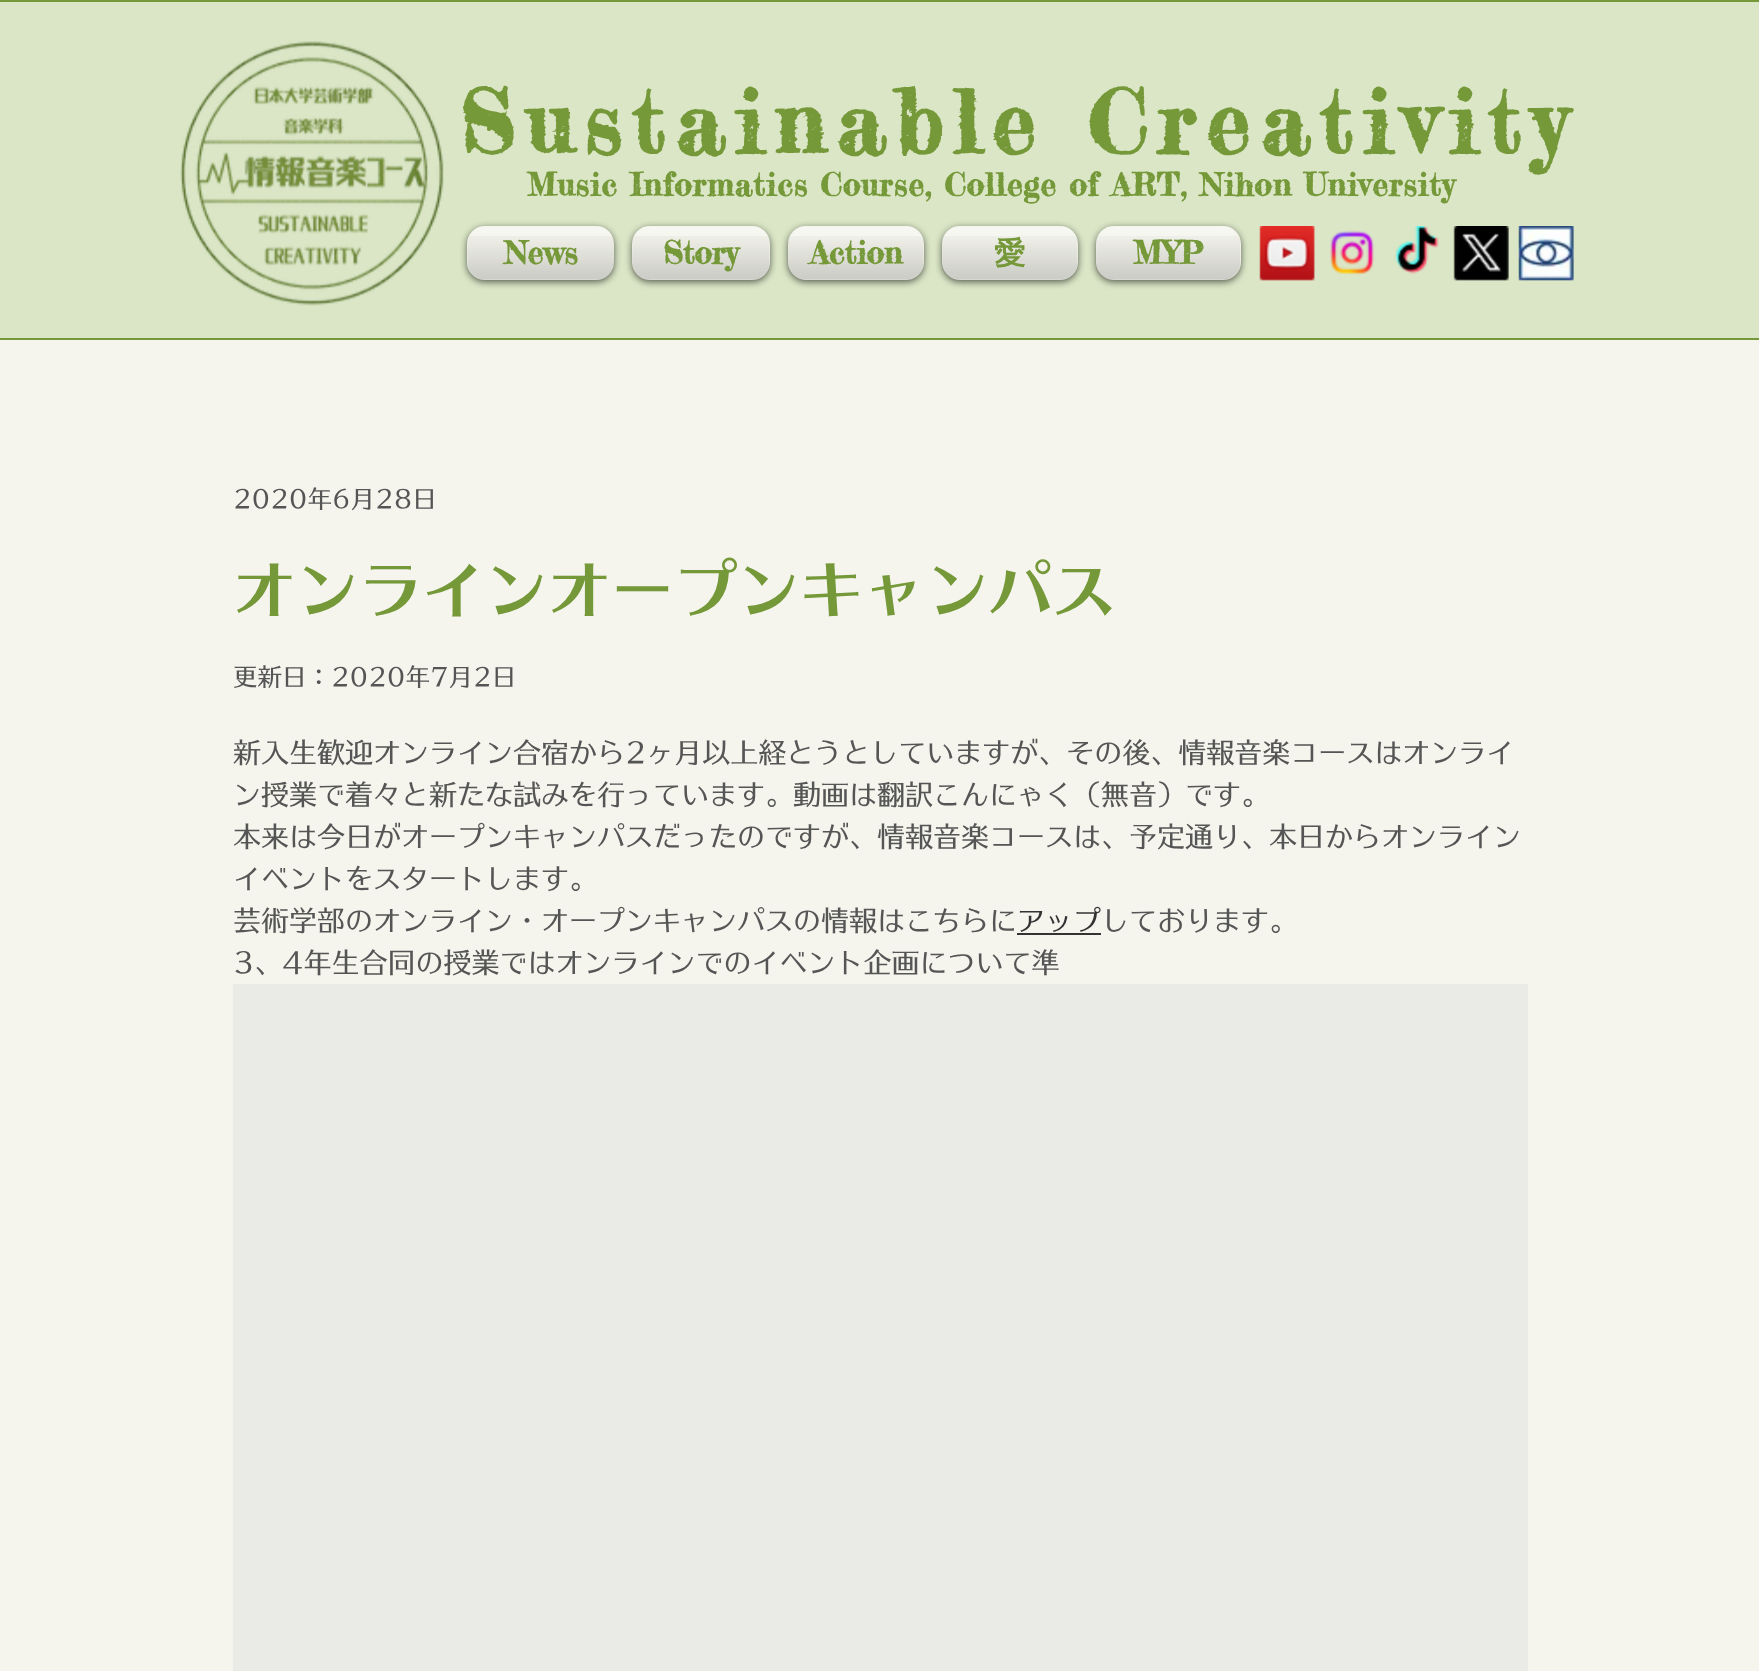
<svg xmlns="http://www.w3.org/2000/svg" xmlns:xlink="http://www.w3.org/1999/xlink" width="1759" height="1671" viewBox="0 0 1759 1671">
<style>
.cls-1{font:bold 87.5px Fredericka the Great;letter-spacing:10.5px;fill:#759839}
.cls-2{font:bold 31.5px Fredericka the Great;letter-spacing:0.95px;fill:#759839}
.cls-3{font:bold 31.5px Fredericka the Great;fill:#759839}
.cls-4{font:bold 31.5px WenQuanYi Zen Hei;fill:#759839}
.cls-5{font:24.5px 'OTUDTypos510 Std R';fill:#555555}
.cls-6{font:63px 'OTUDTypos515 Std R';fill:#759839}
.cls-7{font:28px 'OTUDTypos510 Std R';fill:#555555}
.cls-8{font:28px 'OTUDTypos510 Std R';fill:#333333}
</style>
<rect width="100%" height="100%" fill="#f5f5ee"/>
<rect fill="#759839" x="0" y="0" width="1759" height="2"/>
<rect fill="#759839" x="0" y="338" width="1759" height="2"/>
<rect fill="#dae6c6" x="0" y="2" width="1759" height="336"/>
<image xlink:href="image0.png" x="180" y="41" width="264" height="265"/>
<rect fill="#000000" fill-opacity="0.6" filter="blur(3.5px)" x="467" y="228" width="147" height="54" rx="18"/>
<rect fill="#f5f5ee" x="467" y="226" width="147" height="54" rx="18"/>
<image xlink:href="image1.png" x="474" y="226" width="139" height="11"/>
<image xlink:href="image2.png" x="467" y="236" width="147" height="44"/>
<rect fill="#000000" fill-opacity="0.6" filter="blur(3.5px)" x="632" y="228" width="138" height="54" rx="18"/>
<rect fill="#f5f5ee" x="632" y="226" width="138" height="54" rx="18"/>
<image xlink:href="image3.png" x="633" y="226" width="136" height="11"/>
<image xlink:href="image4.png" x="632" y="236" width="138" height="44"/>
<rect fill="#000000" fill-opacity="0.6" filter="blur(3.5px)" x="788" y="228" width="136" height="54" rx="18"/>
<rect fill="#f5f5ee" x="788" y="226" width="136" height="54" rx="18"/>
<image xlink:href="image5.png" x="788" y="226" width="135" height="15"/>
<image xlink:href="image6.png" x="787" y="236" width="137" height="44"/>
<rect fill="#000000" fill-opacity="0.6" filter="blur(3.5px)" x="942" y="228" width="136" height="54" rx="18"/>
<rect fill="#f5f5ee" x="942" y="226" width="136" height="54" rx="18"/>
<image xlink:href="image5.png" x="942" y="226" width="135" height="15"/>
<image xlink:href="image7.png" x="941" y="236" width="137" height="44"/>
<rect fill="#000000" fill-opacity="0.6" filter="blur(3.5px)" x="1096" y="228" width="145" height="54" rx="18"/>
<rect fill="#f5f5ee" x="1096" y="226" width="145" height="54" rx="18"/>
<image xlink:href="image8.png" x="1096" y="226" width="138" height="15"/>
<image xlink:href="image9.png" x="1095" y="236" width="146" height="44"/>
<image xlink:href="image10.png" x="1259" y="226" width="56" height="55"/>
<image xlink:href="image11.png" x="1330" y="230" width="45" height="45"/>
<image xlink:href="image12.png" x="1394" y="226" width="45" height="48"/>
<image xlink:href="image13.png" x="1453" y="226" width="56" height="55"/>
<image xlink:href="image14.png" x="1518" y="226" width="56" height="55"/>
<rect fill="#333333" x="1017" y="933" width="84" height="2"/>
<rect fill="#eaeae6" x="233" y="984" width="1295" height="687"/>
<text class="cls-1" x="459" y="154">Sustainable Creativity</text>
<text class="cls-2" x="527" y="196">Music Informatics Course, College of ART, Nihon University</text>
<text class="cls-3" x="504" y="264">News</text>
<text class="cls-3" x="663" y="264">Story</text>
<text class="cls-3" x="810" y="264">Action</text>
<text class="cls-4" x="994" y="264">愛</text>
<text class="cls-3" x="1133" y="264">MYP</text>
<text class="cls-5" x="233" y="508">2020年6月28日</text>
<text class="cls-6" x="233" y="613">オンラインオープンキャンパス</text>
<text class="cls-5" x="233" y="686">更新日：2020年7月2日</text>
<text class="cls-7"><tspan x="233" y="763">新入生歓迎オンライン合宿から2ヶ月以上経とうとしていますが、その後、情報音楽コースはオンライ</tspan><tspan x="233" y="805">ン授業で着々と新たな試みを行っています。動画は翻訳こんにゃく（無音）です。</tspan><tspan x="233" y="847">本来は今日がオープンキャンパスだったのですが、情報音楽コースは、予定通り、本日からオンライン</tspan><tspan x="233" y="889">イベントをスタートします。</tspan><tspan x="233" y="931">芸術学部のオンライン・オープンキャンパスの情報はこちらに</tspan></text>
<text class="cls-8" x="1017" y="931">アップ</text>
<text class="cls-7" x="1101" y="931">しております。</text>
<text class="cls-7" x="233" y="973">3、4年生合同の授業ではオンラインでのイベント企画について準</text>
</svg>
